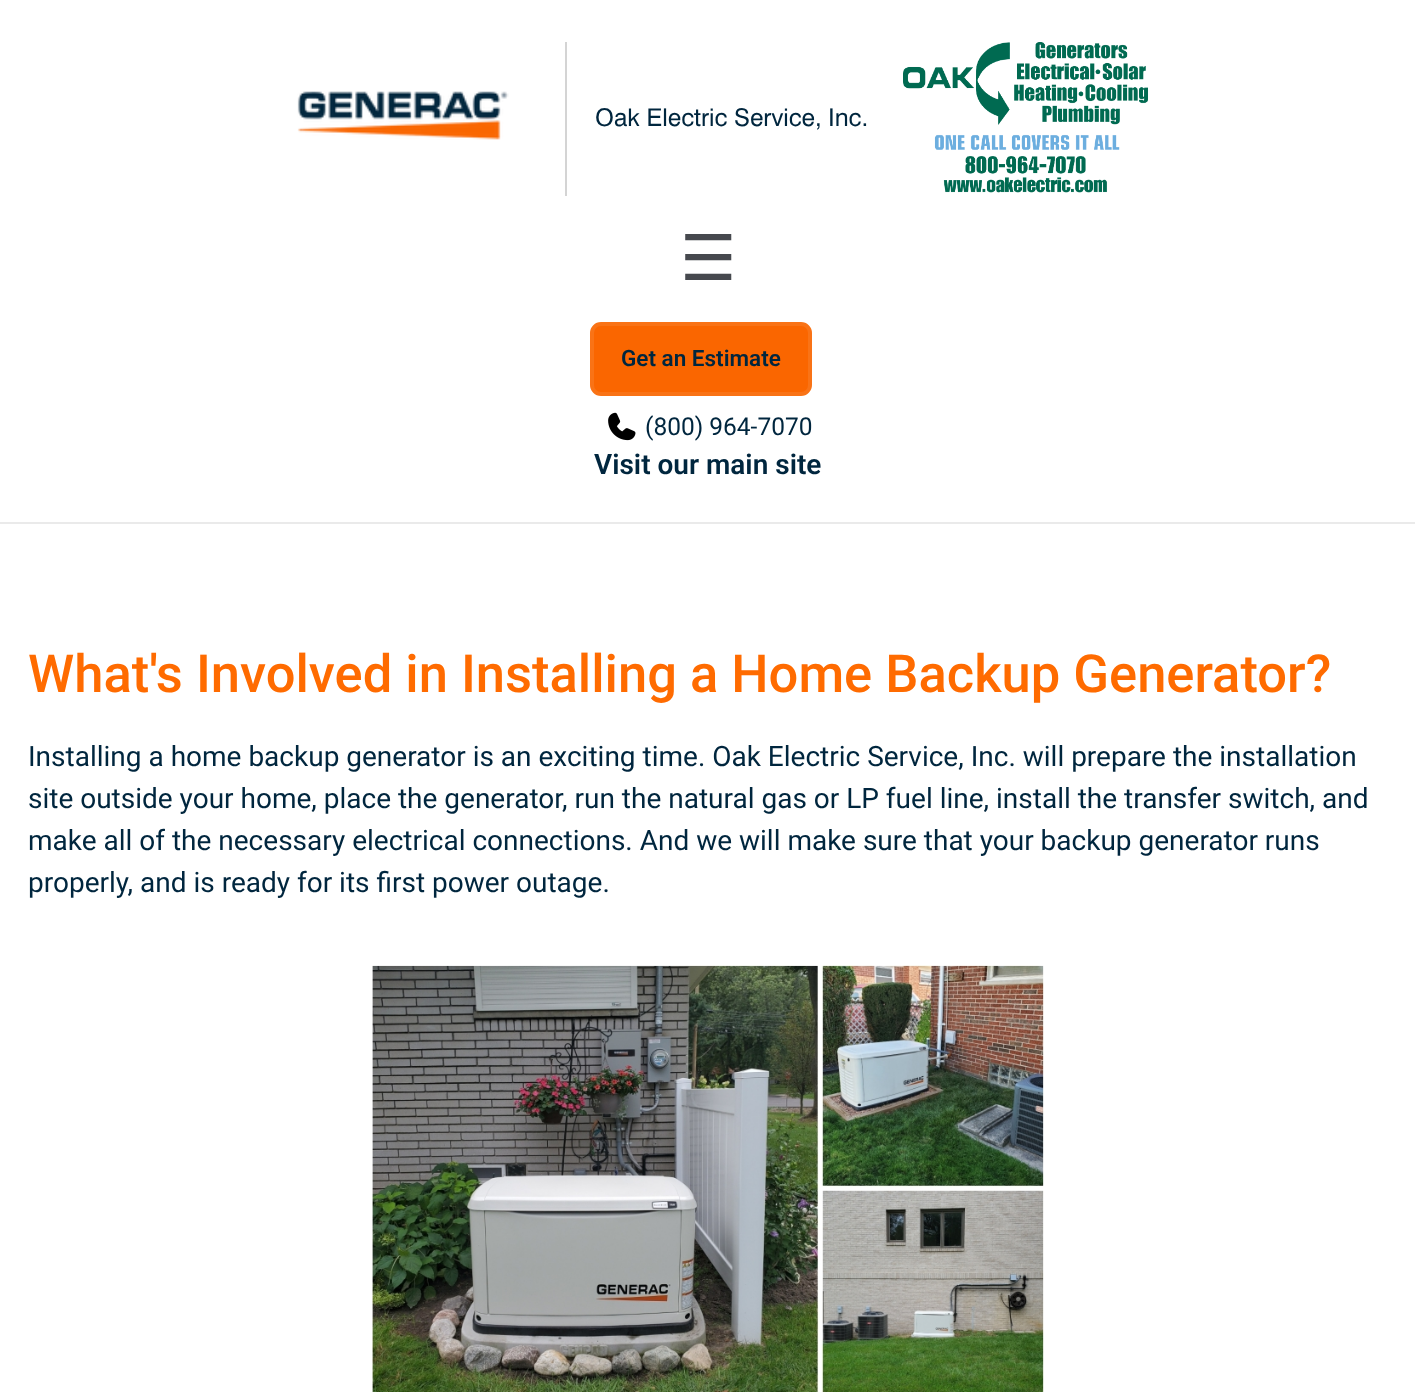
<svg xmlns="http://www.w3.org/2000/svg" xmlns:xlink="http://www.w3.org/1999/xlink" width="1415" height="1392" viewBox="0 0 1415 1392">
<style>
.cls-1{font:24.5px 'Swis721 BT';fill:#00263e}
.cls-2{font:63px DejaVu Sans;fill:#46494e}
.cls-3{font:600 22.5px Roboto;fill:#00263e}
.cls-4{font:24.5px Roboto;fill:#00263e}
.cls-5{font:600 28px Roboto;fill:#00263e}
.cls-6{font:500 52.5px Roboto;fill:#ff6b00}
.cls-7{font:28px Roboto;fill:#00263e}
</style>
<rect width="100%" height="100%" fill="#ffffff"/>
<rect fill="#eaeaea" x="0" y="522" width="1415" height="2"/>
<image xlink:href="image0.png" x="297" y="91" width="212" height="49"/>
<rect fill="#d4d4d4" x="565" y="42" width="2" height="154"/>
<image xlink:href="image1.png" x="903" y="42" width="245" height="151"/>
<rect fill="#fa6600" stroke="#f97316" stroke-width="4" x="592" y="324" width="218" height="70" rx="9"/>
<image xlink:href="image2.png" x="608" y="412" width="28" height="29"/>
<image xlink:href="image3.png" x="372" y="965" width="672" height="427"/>
<text class="cls-1" x="595" y="126">Oak Electric Service, Inc.</text>
<text class="cls-2" x="680" y="280">☰</text>
<text class="cls-3" x="621" y="366">Get an Estimate</text>
<text class="cls-4" x="645" y="435">(800) 964-7070</text>
<text class="cls-5" x="594" y="474">Visit our main site</text>
<text class="cls-6" x="28" y="692">What's Involved in Installing a Home Backup Generator?</text>
<text class="cls-7"><tspan x="28" y="766">Installing a home backup generator is an exciting time. Oak Electric Service, Inc. will prepare the installation</tspan><tspan x="28" y="808">site outside your home, place the generator, run the natural gas or LP fuel line, install the transfer switch, and</tspan><tspan x="28" y="850">make all of the necessary electrical connections. And we will make sure that your backup generator runs</tspan><tspan x="28" y="892">properly, and is ready for its first power outage.</tspan></text>
</svg>
